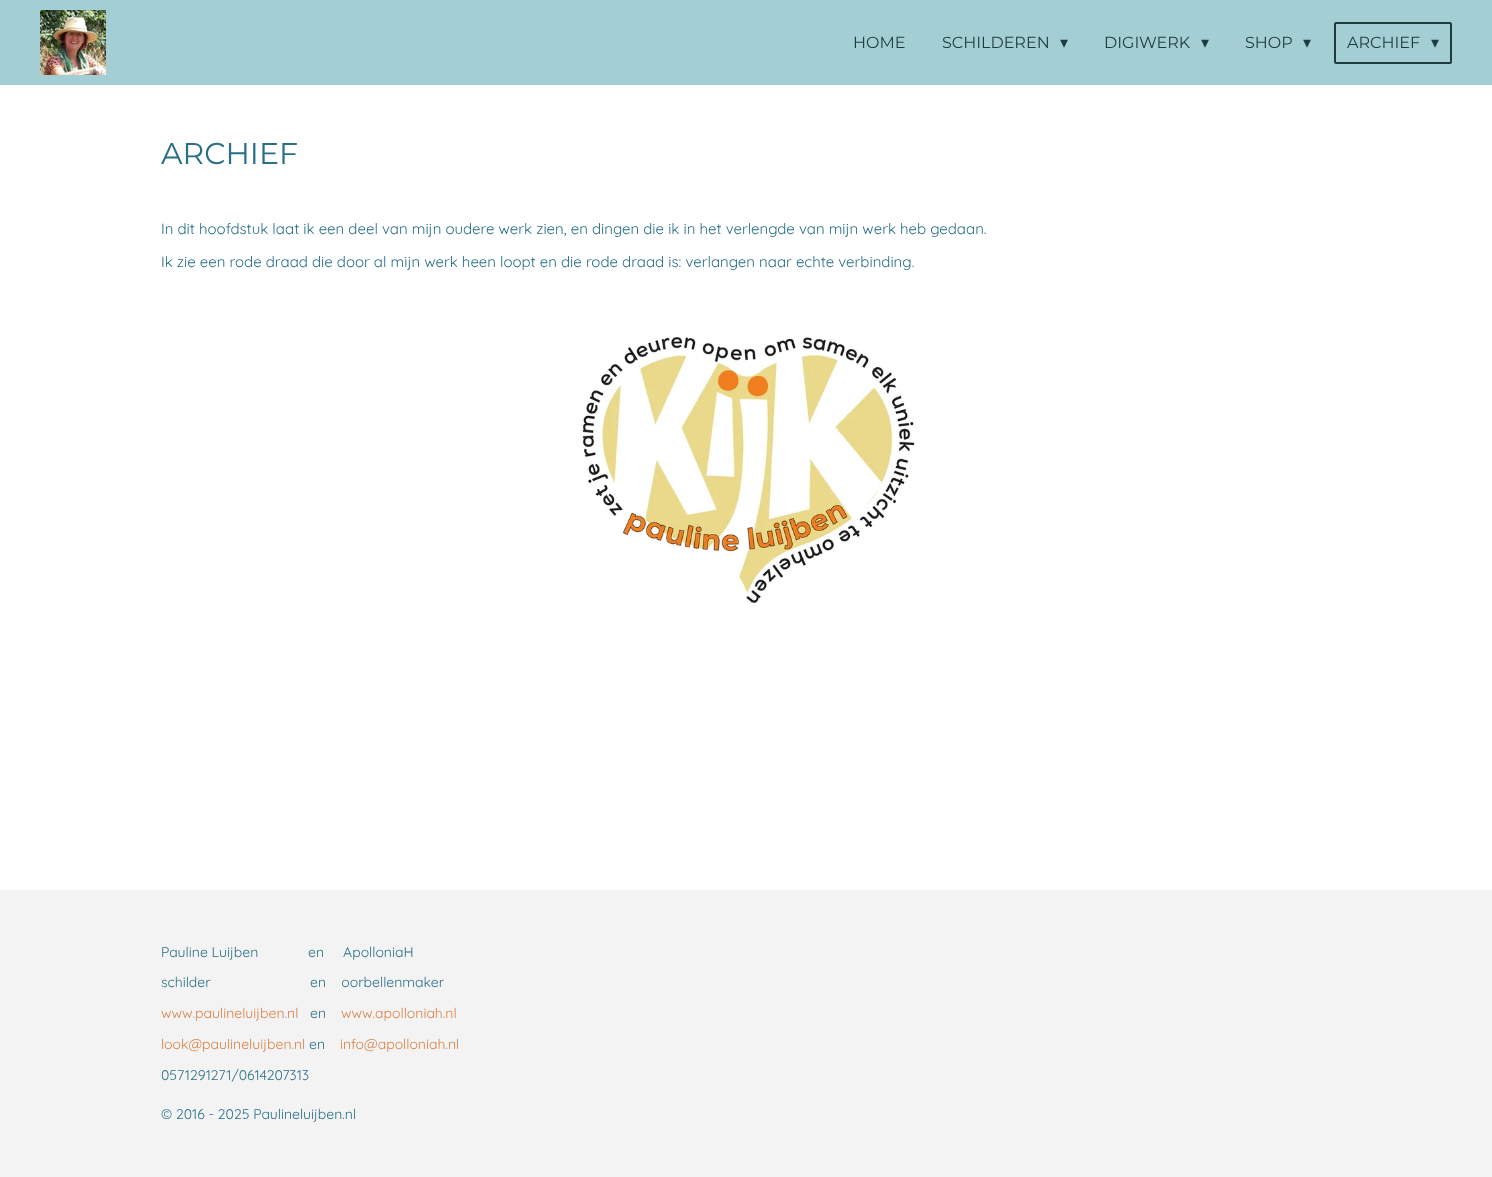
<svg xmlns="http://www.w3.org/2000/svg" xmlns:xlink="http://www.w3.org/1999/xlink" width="1492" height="1177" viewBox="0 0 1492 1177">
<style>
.cls-1{font:16px Montserrat;fill:#1e3c3f}
.cls-2{font:16px DejaVu Sans;fill:#1e3c3f}
.cls-3{font:30px Montserrat;fill:#296f87}
.cls-4{font:15px Quicksand;fill:#296f87}
.cls-5{font:14px Quicksand;fill:#296f87}
.cls-6{font:14px Quicksand;fill:#da8044}
</style>
<rect width="100%" height="100%" fill="#ffffff"/>
<rect fill="#a3ced3" x="0" y="0" width="1492" height="85"/>
<image xlink:href="image0.png" x="40" y="10" width="66" height="65"/>
<rect fill="none" stroke="#1e3c3f" stroke-width="2" x="1335" y="23" width="116" height="40" rx="1"/>
<image xlink:href="image1.png" x="582" y="336" width="333" height="267"/>
<rect fill="#f3f3f3" x="0" y="890" width="1492" height="287"/>
<text class="cls-1" x="853" y="48">HOME</text>
<text class="cls-1" x="942" y="48">SCHILDEREN</text>
<text class="cls-2" x="1060" y="48">▾</text>
<text class="cls-1" x="1104" y="48">DIGIWERK</text>
<text class="cls-2" x="1201" y="48">▾</text>
<text class="cls-1" x="1245" y="48">SHOP</text>
<text class="cls-2" x="1303" y="48">▾</text>
<text class="cls-1" x="1347" y="48">ARCHIEF</text>
<text class="cls-2" x="1431" y="48">▾</text>
<text class="cls-3" x="161" y="164">ARCHIEF</text>
<text class="cls-4" x="161" y="234">In dit hoofdstuk laat ik een deel van mijn oudere werk zien, en dingen die ik in het verlengde van mijn werk heb gedaan.</text>
<text class="cls-4" x="161" y="267">Ik zie een rode draad die door al mijn werk heen loopt en die rode draad is: verlangen naar echte verbinding.</text>
<text class="cls-5" xml:space="preserve" x="161" y="957">Pauline Luijben             en     ApolloniaH</text>
<text class="cls-5" xml:space="preserve" x="161" y="987">schilder                          en    oorbellenmaker</text>
<text class="cls-6" x="161" y="1018">www.paulineluijben.nl</text>
<text class="cls-5" x="310" y="1018">en</text>
<text class="cls-6" x="341" y="1018">www.apolloniah.nl</text>
<text class="cls-6" x="161" y="1049">look@paulineluijben.nl</text>
<text class="cls-5" x="309" y="1049">en</text>
<text class="cls-6" x="340" y="1049">info@apolloniah.nl</text>
<text class="cls-5" x="161" y="1080">0571291271/0614207313</text>
<text class="cls-5" x="161" y="1119">© 2016 - 2025 Paulineluijben.nl</text>
</svg>
